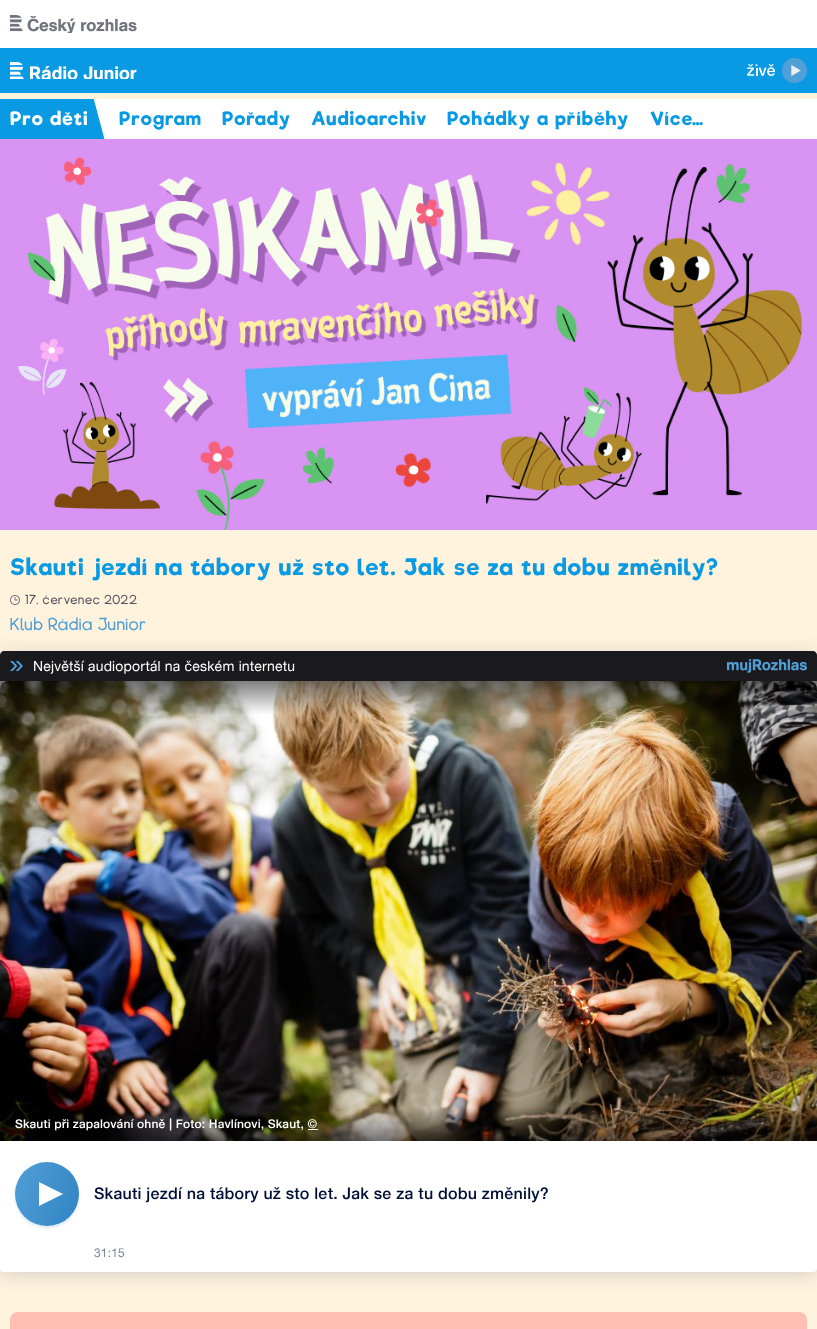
<svg xmlns="http://www.w3.org/2000/svg" xmlns:xlink="http://www.w3.org/1999/xlink" width="817" height="1329" viewBox="0 0 817 1329">
<style>
.cls-1{font:600 18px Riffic;letter-spacing:0.95px;fill:#ffffff}
.cls-2{font:600 18px Riffic;letter-spacing:0.95px;fill:#0a9ae4}
.cls-3{font:600 22px Riffic;letter-spacing:0.95px;fill:#0a9ae4}
.cls-4{font:12px Riffic;letter-spacing:0.95px;fill:#555561}
.cls-5{font:16px Riffic;letter-spacing:0.95px;fill:#519fd7}
.cls-6{font:14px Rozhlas;letter-spacing:0.2px;fill:#ffffff}
.cls-7{font:500 12px Rozhlas;letter-spacing:0.15px;fill:#ffffff}
.cls-8{font:500 16px Rozhlas;letter-spacing:0.2px;fill:#000f37}
.cls-9{font:12px Rozhlas;letter-spacing:0.15px;fill:#7d8599}
</style>
<defs>
<clipPath id="clip1"><rect x="0" y="99" width="109" height="40"/></clipPath>
<linearGradient id="g1" gradientUnits="userSpaceOnUse" x1="409" y1="681" x2="409" y2="715"><stop offset="0" stop-color="#000000" stop-opacity="0.5"/><stop offset="1" stop-color="#000000" stop-opacity="0"/></linearGradient>
<clipPath id="clip2"><path d="M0 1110H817V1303H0ZM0 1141H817V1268C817 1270 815 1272 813 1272H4C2 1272 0 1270 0 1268Z" clip-rule="evenodd"/></clipPath>
<linearGradient id="g2" gradientUnits="userSpaceOnUse" x1="409" y1="1141" x2="409" y2="1107"><stop offset="0" stop-color="#000000" stop-opacity="0.5"/><stop offset="1" stop-color="#000000" stop-opacity="0"/></linearGradient>
<linearGradient id="g3" gradientUnits="userSpaceOnUse" x1="8" y1="1179" x2="86" y2="1209"><stop offset="0" stop-color="#519fd7"/><stop offset="1" stop-color="#3183c3"/></linearGradient>
</defs>
<rect width="100%" height="100%" fill="#fff3dd"/>
<rect fill="#ffffff" x="0" y="0" width="817" height="48"/>
<image xlink:href="image0.png" x="10" y="15" width="127" height="18"/>
<rect fill="#0a9ae4" x="0" y="48" width="817" height="45"/>
<image xlink:href="image1.png" x="10" y="62" width="127" height="17"/>
<image xlink:href="image2.png" x="747" y="58" width="60" height="25"/>
<rect fill="#0a9ae4" x="0" y="99" width="105" height="40"/>
<g clip-path="url(#clip1)">
<path fill="#ffffff" d="M93 96L141 83L154 132L106 145Z"/>
</g>
<rect fill="#ffffff" x="109" y="99" width="708" height="40"/>
<image xlink:href="image3.png" x="0" y="139" width="817" height="391"/>
<image xlink:href="image4.png" x="10" y="595" width="10" height="10"/>
<rect fill="#384475" fill-opacity="0.13" filter="blur(10px)" x="0" y="651" width="817" height="621" rx="4"/>
<rect fill="#ffffff" x="0" y="651" width="817" height="621" rx="4"/>
<path fill="#1a1a1e" d="M4 651H813C815 651 817 653 817 655V681H0V655C0 653 2 651 4 651Z"/>
<image xlink:href="image5.png" x="10" y="661" width="13" height="10"/>
<image xlink:href="image6.png" x="727" y="659" width="80" height="14"/>
<rect fill="#d8d8d8" x="0" y="681" width="817" height="8"/>
<image xlink:href="image7.png" x="0" y="681" width="817" height="460"/>
<rect fill="url(#g1)" x="0" y="681" width="817" height="33"/>
<g clip-path="url(#clip2)">
<rect fill="#384475" fill-opacity="0.13" filter="blur(10px)" x="0" y="1141" width="817" height="131" rx="4"/>
</g>
<rect fill="url(#g2)" x="0" y="1108" width="817" height="33"/>
<rect fill="#ffffff" x="308" y="1129" width="10" height="1"/>
<rect fill="#3183c3" fill-opacity="0.19" filter="blur(1.5px)" x="15" y="1164" width="64" height="64" rx="32"/>
<circle fill="url(#g3)" cx="47" cy="1194" r="32"/>
<path fill="#ffffff" d="M39 1206V1182L63 1194Z"/>
<rect fill="#febeb3" x="10" y="1312" width="797" height="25" rx="8"/>
<text class="cls-1" x="10" y="125">Pro děti</text>
<text class="cls-2" x="119" y="125">Program</text>
<text class="cls-2" x="222" y="125">Pořady</text>
<text class="cls-2" x="311" y="125">Audioarchiv</text>
<text class="cls-2" x="447" y="125">Pohádky a příběhy</text>
<text class="cls-2" x="650" y="125">Více</text>
<text class="cls-2" x="692" y="125">…</text>
<text class="cls-3" x="10" y="575">Skauti jezdí na tábory už sto let. Jak se za tu dobu změnily?</text>
<text class="cls-4" x="25" y="604">17. červenec 2022</text>
<text class="cls-5" x="10" y="630">Klub Rádia Junior</text>
<text class="cls-6" x="33" y="671">Největší audioportál na českém internetu</text>
<text class="cls-7" x="15" y="1128">Skauti při zapalování ohně | Foto: Havlínovi, Skaut, ©</text>
<text class="cls-8" x="94" y="1199">Skauti jezdí na tábory už sto let. Jak se za tu dobu změnily?</text>
<text class="cls-9" x="94" y="1257">31:15</text>
</svg>
